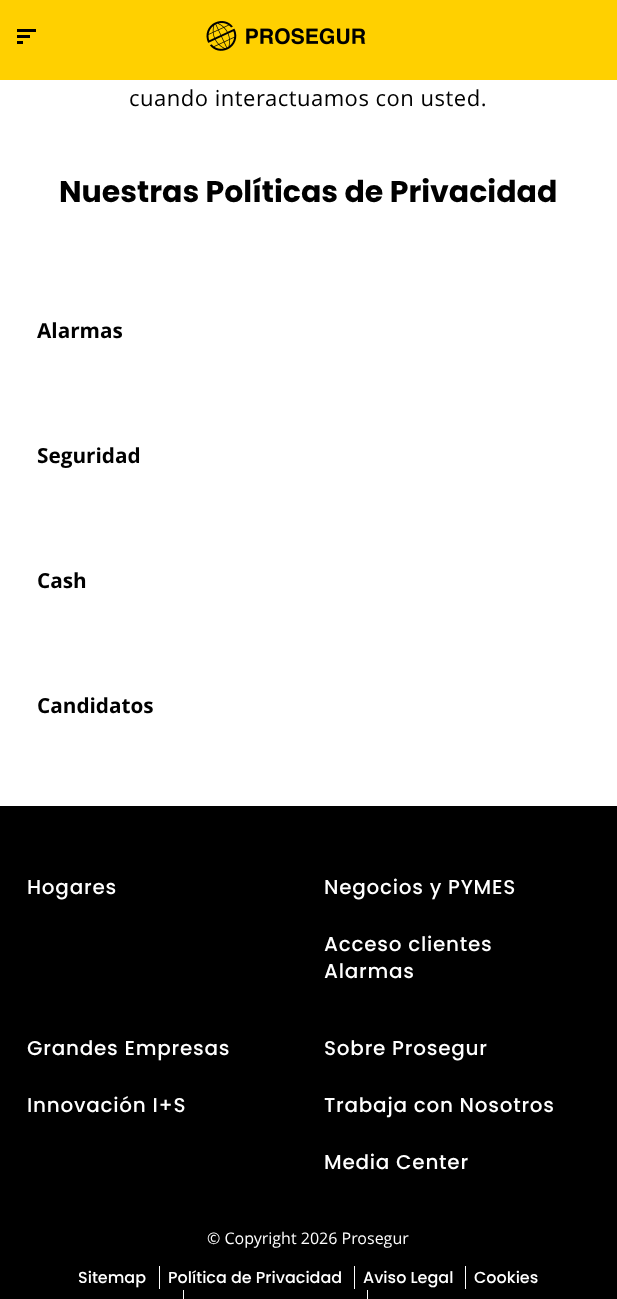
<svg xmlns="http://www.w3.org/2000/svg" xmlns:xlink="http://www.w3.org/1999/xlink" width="617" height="1299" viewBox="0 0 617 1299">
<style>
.cls-1{font:22px Open Sans;letter-spacing:0.5px;fill:#000000}
.cls-2{font:bold 30px Poppins;fill:#000000}
.cls-3{font:bold 20.75px Open Sans;fill:#000000}
.cls-4{font:500 20px Poppins;letter-spacing:0.75px;fill:#ffffff}
.cls-5{font:16px Open Sans;fill:#ffffff}
.cls-6{font:500 16px Poppins;fill:#ffffff}
</style>
<rect width="100%" height="100%" fill="#ffffff"/>
<rect fill="#ffd000" x="0" y="0" width="617" height="80"/>
<rect fill="#000000" x="17" y="29" width="19" height="3"/>
<rect fill="#000000" x="17" y="35" width="13" height="3"/>
<rect fill="#000000" x="17" y="41" width="6" height="3"/>
<image xlink:href="image0.png" x="206" y="21" width="160" height="30"/>
<rect fill="#000000" x="0" y="806" width="617" height="493"/>
<rect fill="#ffffff" x="159" y="1266" width="1" height="23"/>
<rect fill="#ffffff" x="354" y="1266" width="1" height="23"/>
<rect fill="#ffffff" x="465" y="1266" width="1" height="23"/>
<rect fill="#ffffff" x="183" y="1290" width="1" height="9"/>
<rect fill="#ffffff" x="367" y="1290" width="1" height="9"/>
<text class="cls-1" x="129" y="106">cuando interactuamos con usted.</text>
<text class="cls-2" x="59" y="202">Nuestras Políticas de Privacidad</text>
<text class="cls-3" x="37" y="338">Alarmas</text>
<text class="cls-3" x="37" y="463">Seguridad</text>
<text class="cls-3" x="37" y="588">Cash</text>
<text class="cls-3" x="37" y="713">Candidatos</text>
<text class="cls-4" x="27" y="894">Hogares</text>
<text class="cls-4" x="324" y="894">Negocios y PYMES</text>
<text class="cls-4"><tspan x="324" y="951">Acceso clientes</tspan><tspan x="324" y="978">Alarmas</tspan></text>
<text class="cls-4" x="27" y="1055">Grandes Empresas</text>
<text class="cls-4" x="27" y="1112">Innovación I+S</text>
<text class="cls-4" x="324" y="1055">Sobre Prosegur</text>
<text class="cls-4" x="324" y="1112">Trabaja con Nosotros</text>
<text class="cls-4" x="324" y="1169">Media Center</text>
<text class="cls-5" x="207" y="1244">© Copyright 2026 Prosegur</text>
<text class="cls-6" x="78" y="1283">Sitemap</text>
<text class="cls-6" x="168" y="1283">Política de Privacidad</text>
<text class="cls-6" x="363" y="1283">Aviso Legal</text>
<text class="cls-6" x="474" y="1283">Cookies</text>
</svg>
